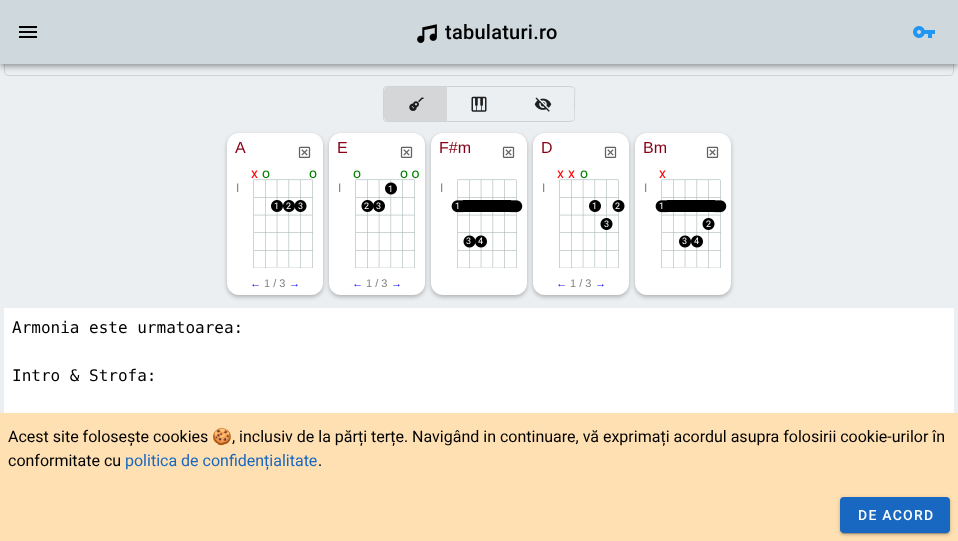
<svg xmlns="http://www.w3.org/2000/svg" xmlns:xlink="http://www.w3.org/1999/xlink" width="958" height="541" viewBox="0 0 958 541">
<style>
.cls-1{font:500 20px Roboto;letter-spacing:0.25px;fill:#000000}
.cls-2{font:16px Liberation Sans;fill:#880017}
.cls-3{font:14px Roboto;fill:#ff0000}
.cls-4{font:14px Roboto;fill:#008000}
.cls-5{font:12px Roboto;fill:#808080}
.cls-6{font:9px Roboto;fill:#ffffff}
.cls-7{font:11px Liberation Sans;fill:#0000ee}
.cls-8{font:11px Liberation Sans;fill:#808080}
.cls-9{font:16px DejaVu Sans Mono;fill:#000000}
.cls-10{font:16px Roboto;fill:#000000}
.cls-11{font:16px Noto Color Emoji;fill:#000000}
.cls-12{font:16px Roboto;fill:#1867c0}
.cls-13{font:500 14px Roboto;letter-spacing:1.25px;fill:#ffffff}
</style>
<rect width="100%" height="100%" fill="#eceff1"/>
<rect fill="none" stroke="#d0d2d4" x="4.5" y="10.5" width="949" height="65" rx="3.5"/>
<rect fill="#000000" fill-opacity="0.12" filter="blur(5px)" x="0" y="1" width="958" height="64"/>
<rect fill="#000000" fill-opacity="0.14" filter="blur(2.5px)" x="0" y="4" width="958" height="64"/>
<rect fill="#000000" fill-opacity="0.2" filter="blur(2px)" x="1" y="3" width="956" height="62"/>
<rect fill="#cfd8dc" x="0" y="0" width="958" height="64"/>
<image xlink:href="image0.png" x="19" y="26" width="18" height="12"/>
<image xlink:href="image1.png" x="417" y="24" width="20" height="19"/>
<image xlink:href="image2.png" x="913" y="26" width="22" height="12"/>
<path fill="#d0d2d4" fill-rule="evenodd" d="M387 86H447V122H387C385 122 383 120 383 118V90C383 88 385 86 387 86ZM387 87H447V121H387C385 121 384 120 384 118V90C384 88 385 87 387 87Z"/>
<path fill="#d4d6d8" d="M388 87H447V121H388C386 121 384 119 384 117V91C384 89 386 87 388 87Z"/>
<image xlink:href="image3.png" x="409" y="97" width="15" height="14"/>
<rect fill="#d0d2d4" x="447" y="86" width="64" height="1"/>
<rect fill="#d0d2d4" x="447" y="121" width="64" height="1"/>
<image xlink:href="image4.png" x="471" y="96" width="16" height="16"/>
<path fill="#d0d2d4" d="M511 86V87H570L574 88C575 90 574 101 574 104C574 107 575 118 574 120L570 121H511V122H570C576 121 575 119 575 113V104C575 86 579 86 561 86Z"/>
<image xlink:href="image5.png" x="534" y="97" width="18" height="15"/>
<rect fill="#000000" fill-opacity="0.26" filter="blur(2px)" x="227" y="135" width="96" height="162" rx="12"/>
<rect fill="#ffffff" x="227" y="133" width="96" height="162" rx="12"/>
<image xlink:href="image6.png" x="298" y="146" width="13" height="12"/>
<image xlink:href="image7.png" x="253" y="179" width="60" height="89"/>
<rect fill="#000000" fill-opacity="0.26" filter="blur(2px)" x="329" y="135" width="96" height="162" rx="12"/>
<rect fill="#ffffff" x="329" y="133" width="96" height="162" rx="12"/>
<image xlink:href="image6.png" x="400" y="146" width="13" height="12"/>
<image xlink:href="image8.png" x="355" y="179" width="60" height="89"/>
<rect fill="#000000" fill-opacity="0.26" filter="blur(2px)" x="431" y="135" width="96" height="162" rx="12"/>
<rect fill="#ffffff" x="431" y="133" width="96" height="162" rx="12"/>
<image xlink:href="image6.png" x="502" y="146" width="13" height="12"/>
<image xlink:href="image9.png" x="451" y="179" width="72" height="89"/>
<rect fill="#000000" fill-opacity="0.26" filter="blur(2px)" x="533" y="135" width="96" height="162" rx="12"/>
<rect fill="#ffffff" x="533" y="133" width="96" height="162" rx="12"/>
<image xlink:href="image6.png" x="604" y="146" width="13" height="12"/>
<image xlink:href="image10.png" x="559" y="179" width="66" height="89"/>
<rect fill="#000000" fill-opacity="0.26" filter="blur(2px)" x="635" y="135" width="96" height="162" rx="12"/>
<rect fill="#ffffff" x="635" y="133" width="96" height="162" rx="12"/>
<image xlink:href="image6.png" x="706" y="146" width="13" height="12"/>
<image xlink:href="image11.png" x="655" y="179" width="72" height="89"/>
<rect fill="#ffffff" x="4" y="308" width="950" height="105"/>
<rect fill="#ffe0b2" x="0" y="413" width="958" height="128"/>
<rect fill="#000000" fill-opacity="0.12" filter="blur(2.5px)" x="840" y="498" width="110" height="36" rx="4"/>
<rect fill="#000000" fill-opacity="0.14" filter="blur(1px)" x="840" y="499" width="110" height="36" rx="4"/>
<rect fill="#000000" fill-opacity="0.2" filter="blur(0.5px)" x="842" y="502" width="106" height="32" rx="2"/>
<rect fill="#1867c0" x="840" y="497" width="110" height="36" rx="4"/>
<text class="cls-1" x="445" y="39">tabulaturi.ro</text>
<text class="cls-2" x="235" y="153">A</text>
<text class="cls-3" x="251" y="178">x</text>
<text class="cls-4" x="262" y="178">o</text>
<text class="cls-4" x="309" y="178">o</text>
<text class="cls-5" x="236" y="192">I</text>
<text class="cls-6" x="274" y="209">1</text>
<text class="cls-6" x="286" y="209">2</text>
<text class="cls-6" x="298" y="209">3</text>
<text class="cls-7" x="250" y="287">←</text>
<text class="cls-8" x="264" y="287">1 / 3</text>
<text class="cls-7" x="289" y="287">→</text>
<text class="cls-2" x="337" y="153">E</text>
<text class="cls-4" x="353" y="178">o</text>
<text class="cls-4" x="400" y="178">o o</text>
<text class="cls-5" x="338" y="192">I</text>
<text class="cls-6" x="388" y="192">1</text>
<text class="cls-6" x="364" y="209">2</text>
<text class="cls-6" x="376" y="209">3</text>
<text class="cls-7" x="352" y="287">←</text>
<text class="cls-8" x="366" y="287">1 / 3</text>
<text class="cls-7" x="391" y="287">→</text>
<text class="cls-2" x="439" y="153">F#m</text>
<text class="cls-5" x="440" y="192">I</text>
<text class="cls-6" x="455" y="209">1</text>
<text class="cls-6" x="466" y="244">3</text>
<text class="cls-6" x="478" y="244">4</text>
<text class="cls-2" x="541" y="153">D</text>
<text class="cls-3" x="557" y="178">x</text>
<text class="cls-3" x="568" y="178">x</text>
<text class="cls-4" x="580" y="178">o</text>
<text class="cls-5" x="542" y="192">I</text>
<text class="cls-6" x="592" y="209">1</text>
<text class="cls-6" x="615" y="209">2</text>
<text class="cls-6" x="604" y="227">3</text>
<text class="cls-7" x="556" y="287">←</text>
<text class="cls-8" x="570" y="287">1 / 3</text>
<text class="cls-7" x="595" y="287">→</text>
<text class="cls-2" x="643" y="153">Bm</text>
<text class="cls-3" x="659" y="178">x</text>
<text class="cls-5" x="644" y="192">I</text>
<text class="cls-6" x="659" y="209">1</text>
<text class="cls-6" x="706" y="227">2</text>
<text class="cls-6" x="682" y="244">3</text>
<text class="cls-6" x="694" y="244">4</text>
<text class="cls-9" x="12" y="333">Armonia este urmatoarea:</text>
<text class="cls-9" x="12" y="381">Intro &amp; Strofa:</text>
<text class="cls-10" x="8" y="442">Acest site folosește cookies</text>
<text class="cls-11" x="212" y="442">🍪</text>
<text class="cls-10" x="232" y="442">, inclusiv de la părți terțe. Navigând in continuare, vă exprimați acordul asupra folosirii cookie-urilor în</text>
<text class="cls-10" x="8" y="466">conformitate cu</text>
<text class="cls-12" x="125" y="466">politica de confidențialitate</text>
<text class="cls-10" x="318" y="466">.</text>
<text class="cls-13" x="858" y="520">DE ACORD</text>
</svg>
